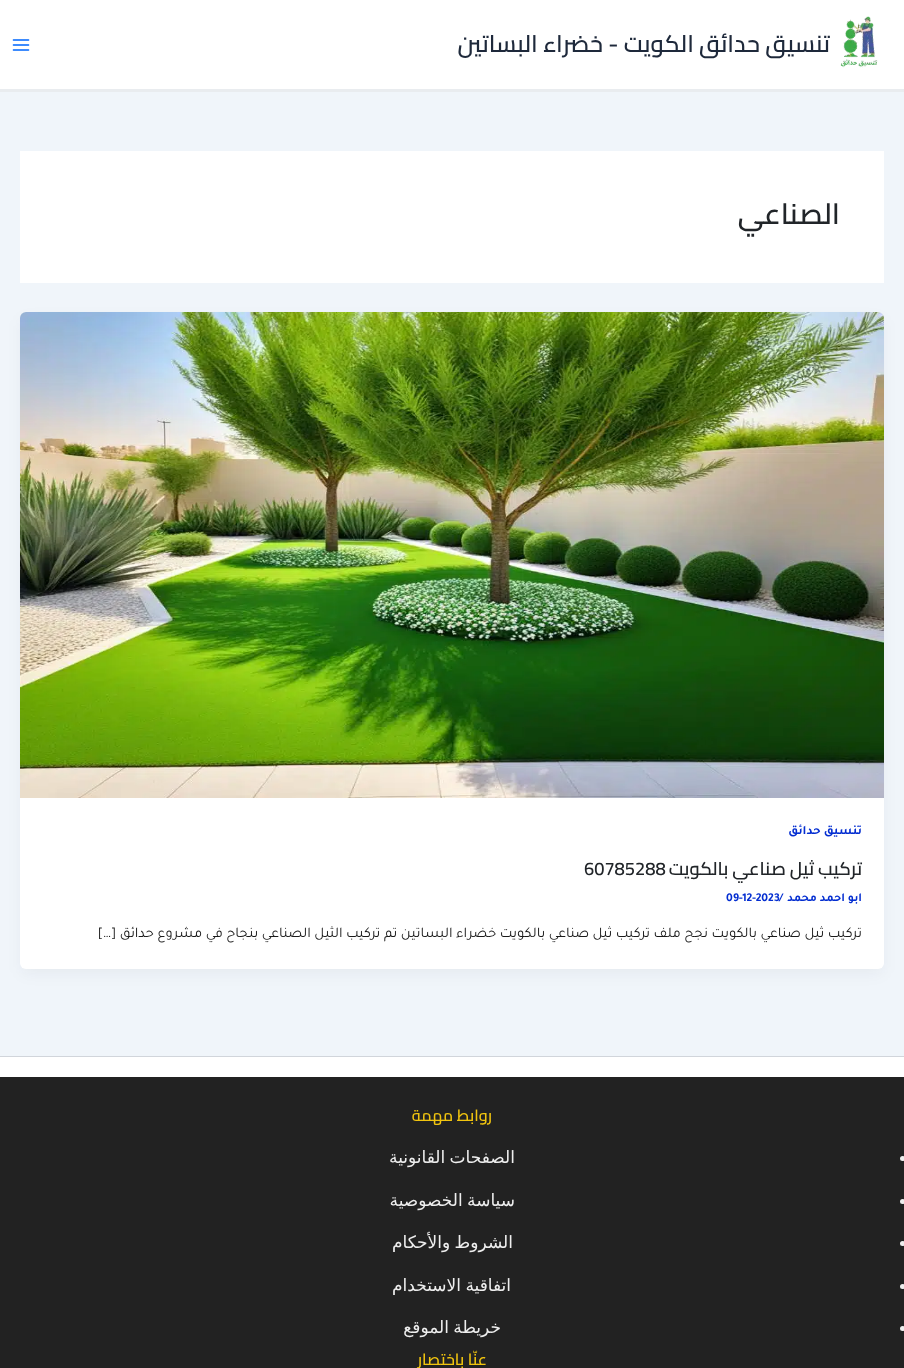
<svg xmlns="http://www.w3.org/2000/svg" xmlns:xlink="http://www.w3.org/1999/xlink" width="904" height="1368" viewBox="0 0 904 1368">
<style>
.cls-1{font:600 23.75px Cairo;direction:rtl;fill:#1e293b}
.cls-2{font:600 29px Cairo;direction:rtl;fill:#212529}
.cls-3{font:bold 12.75px Tajawal;direction:rtl;fill:#042ed1}
.cls-4{font:600 18.25px Cairo;direction:rtl;fill:#212529}
.cls-5{font:600 18.25px Cairo;fill:#212529}
.cls-6{font:bold 12px Tajawal;direction:rtl;fill:#042ed1}
.cls-7{font:bold 12px Tajawal;fill:#042ed1}
.cls-8{font:14.6px Tajawal;direction:rtl;fill:#1a1a1a}
.cls-9{font:600 16px Cairo;direction:rtl;fill:#f1c40f}
.cls-10{font:17px DejaVu Sans;direction:rtl;fill:#eeeeee}
</style>
<rect width="100%" height="100%" fill="#f0f5fa"/>
<rect fill="#ffffff" x="0" y="0" width="904" height="89"/>
<rect fill="#e9ecef" x="0" y="89" width="904" height="3"/>
<image xlink:href="image0.png" x="840" y="16" width="38" height="52"/>
<image xlink:href="image1.png" x="12" y="39" width="18" height="12"/>
<rect fill="#ffffff" x="20" y="151" width="864" height="132"/>
<rect fill="#101828" fill-opacity="0.05" filter="blur(7.5px)" x="22" y="320" width="860" height="653" rx="4"/>
<rect fill="#ffffff" x="20" y="312" width="864" height="657" rx="6"/>
<image xlink:href="image2.png" x="20" y="312" width="864" height="486"/>
<rect fill="#ffffff" x="0" y="1057" width="904" height="20"/>
<rect fill="#d1d5db" x="0" y="1056" width="904" height="1"/>
<rect fill="#222222" x="0" y="1077" width="904" height="291"/>
<circle fill="#eeeeee" cx="902.5" cy="1158.5" r="2.5"/>
<circle fill="#eeeeee" cx="902.5" cy="1201.5" r="2.5"/>
<circle fill="#eeeeee" cx="902.5" cy="1243.5" r="2.5"/>
<circle fill="#eeeeee" cx="902.5" cy="1286.5" r="2.5"/>
<circle fill="#eeeeee" cx="902.5" cy="1328.5" r="2.5"/>
<text class="cls-1" x="830" y="52">تنسيق حدائق الكويت - خضراء البساتين</text>
<text class="cls-2" x="840" y="224">الصناعي</text>
<text class="cls-3" x="862" y="834">تنسيق حدائق</text>
<text class="cls-4" x="862" y="875">تركيب ثيل صناعي بالكويت</text>
<text class="cls-5" x="584" y="875">60785288</text>
<text class="cls-6" x="862" y="901">ابو احمد محمد</text>
<text class="cls-7" x="779" y="901">/</text>
<text class="cls-7" x="726" y="901">09-12-2023</text>
<text class="cls-8" x="862" y="937">تركيب ثيل صناعي بالكويت نجح ملف تركيب ثيل صناعي بالكويت خضراء البساتين تم تركيب الثيل الصناعي بنجاح في مشروع حدائق […]</text>
<text class="cls-9" x="492" y="1121">روابط مهمة</text>
<text class="cls-10" x="515" y="1163" word-spacing="-1">الصفحات القانونية</text>
<text class="cls-10" x="515" y="1206" word-spacing="-1">سياسة الخصوصية</text>
<text class="cls-10" x="513" y="1248" word-spacing="-1">الشروط والأحكام</text>
<text class="cls-10" x="511" y="1291" word-spacing="-1">اتفاقية الاستخدام</text>
<text class="cls-10" x="501" y="1333" word-spacing="-1">خريطة الموقع</text>
<text class="cls-9" x="487" y="1365">عنّا باختصار</text>
</svg>
